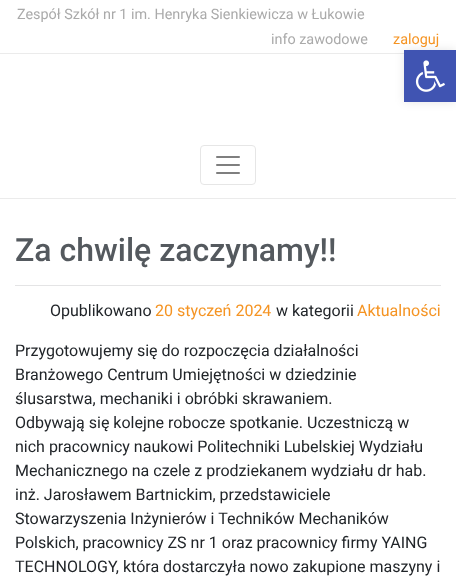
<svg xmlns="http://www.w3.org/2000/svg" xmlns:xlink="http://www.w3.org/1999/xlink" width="456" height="583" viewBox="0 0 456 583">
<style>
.cls-1{font:14.4px Roboto;fill:#aaaaaa}
.cls-2{font:14.4px Roboto;fill:#f59423}
.cls-3{font:500 32px Roboto;fill:#54595e}
.cls-4{font:16px Roboto;fill:#212529}
.cls-5{font:16px Roboto;fill:#f59423}
</style>
<rect width="100%" height="100%" fill="#ffffff"/>
<rect fill="#ebebeb" x="0" y="53" width="404" height="1"/>
<rect fill="#ebebeb" x="0" y="198" width="456" height="1"/>
<rect fill="none" stroke="#e6e6e6" x="200.5" y="145.5" width="55" height="39" rx="3.5"/>
<image xlink:href="image0.png" x="216" y="156" width="24" height="18"/>
<rect fill="#000000" fill-opacity="0.1" filter="blur(5px)" x="404" y="50" width="52" height="52"/>
<rect fill="#4054b2" x="404" y="50" width="52" height="52"/>
<image xlink:href="image1.png" x="415" y="60" width="30" height="32"/>
<rect fill="#e4e4e5" x="15" y="285" width="426" height="1"/>
<text class="cls-1" x="17" y="19">Zespół Szkół nr 1 im. Henryka Sienkiewicza w Łukowie</text>
<text class="cls-1" x="271" y="44">info zawodowe</text>
<text class="cls-2" x="393" y="44">zaloguj</text>
<text class="cls-3" x="15" y="261">Za chwilę zaczynamy!!</text>
<text class="cls-4" x="50" y="316">Opublikowano</text>
<text class="cls-5" x="155" y="316">20 styczeń 2024</text>
<text class="cls-4" x="276" y="316">w kategorii</text>
<text class="cls-5" x="357" y="316">Aktualności</text>
<text class="cls-4"><tspan x="15" y="356">Przygotowujemy się do rozpoczęcia działalności</tspan><tspan x="15" y="380">Branżowego Centrum Umiejętności w dziedzinie</tspan><tspan x="15" y="404">ślusarstwa, mechaniki i obróbki skrawaniem.</tspan><tspan x="15" y="428">Odbywają się kolejne robocze spotkanie. Uczestniczą w</tspan><tspan x="15" y="452">nich pracownicy naukowi Politechniki Lubelskiej Wydziału</tspan><tspan x="15" y="476">Mechanicznego na czele z prodziekanem wydziału dr hab.</tspan><tspan x="15" y="500">inż. Jarosławem Bartnickim, przedstawiciele</tspan><tspan x="15" y="524">Stowarzyszenia Inżynierów i Techników Mechaników</tspan><tspan x="15" y="548">Polskich, pracownicy ZS nr 1 oraz pracownicy firmy YAING</tspan><tspan x="15" y="572">TECHNOLOGY, która dostarczyła nowo zakupione maszyny i</tspan></text>
</svg>
